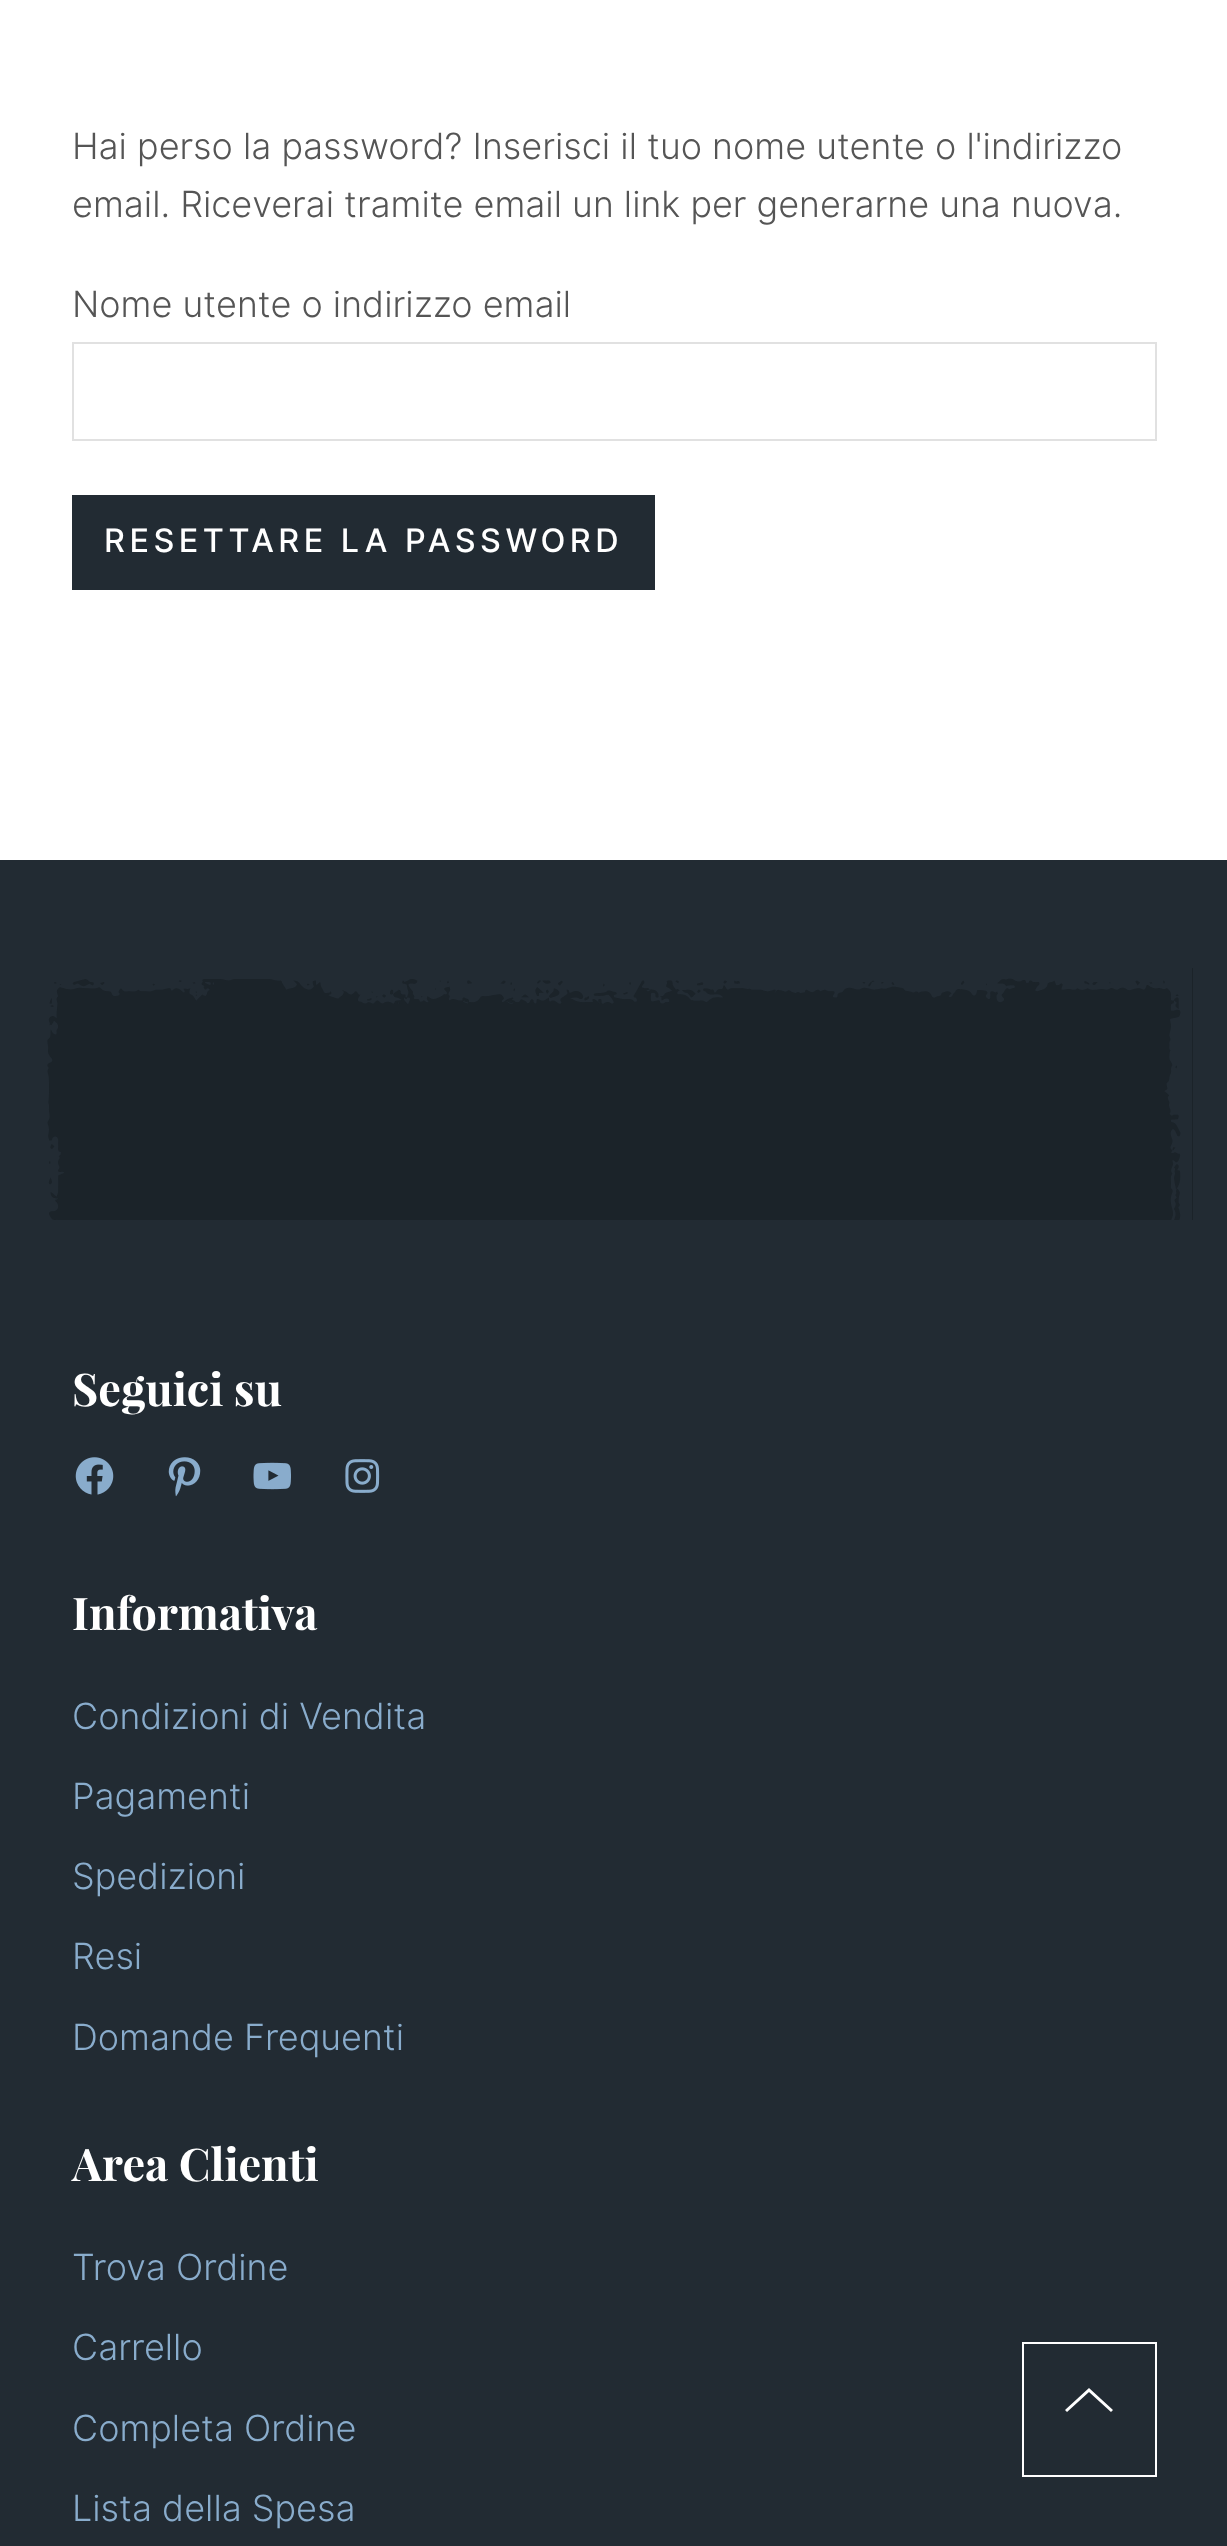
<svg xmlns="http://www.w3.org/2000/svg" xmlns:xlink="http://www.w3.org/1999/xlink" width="1227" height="2546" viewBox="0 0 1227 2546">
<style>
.cls-1{font:300 36px Inter;fill:#555555}
.cls-2{font:500 32.4px Inter;letter-spacing:4.5px;fill:#ffffff}
.cls-3{font:bold 45px Playfair Display;fill:#ffffff}
.cls-4{font:300 36px Inter;fill:#89accc}
</style>
<rect width="100%" height="100%" fill="#ffffff"/>
<rect fill="none" stroke="#e1e1e1" stroke-width="2" x="73" y="343" width="1083" height="97"/>
<rect fill="#222b33" x="72" y="495" width="583" height="95"/>
<rect fill="#222b33" x="0" y="860" width="1227" height="1686"/>
<rect fill="#1b2329" x="47" y="968" width="1146" height="252"/>
<image xlink:href="image0.png" x="36" y="968" width="1156" height="252"/>
<image xlink:href="image1.png" x="75" y="1457" width="39" height="38"/>
<image xlink:href="image2.png" x="168" y="1457" width="33" height="40"/>
<image xlink:href="image3.png" x="253" y="1462" width="38" height="28"/>
<image xlink:href="image4.png" x="345" y="1459" width="35" height="34"/>
<rect fill="none" stroke="#ffffff" stroke-width="2" x="1023" y="2343" width="133" height="133"/>
<path fill="#ffffff" d="M1089 2388L1065 2410L1067 2412L1089 2392L1111 2412L1113 2410Z"/>
<text class="cls-1"><tspan x="72" y="159">Hai perso la password? Inserisci il tuo nome utente o l'indirizzo</tspan><tspan x="72" y="217">email. Riceverai tramite email un link per generarne una nuova.</tspan></text>
<text class="cls-1" x="72" y="317">Nome utente o indirizzo email</text>
<text class="cls-2" x="104" y="552">RESETTARE LA PASSWORD</text>
<text class="cls-3" x="72" y="1406">Seguici su</text>
<text class="cls-3" x="72" y="1630">Informativa</text>
<text class="cls-4" x="72" y="1729">Condizioni di Vendita</text>
<text class="cls-4" x="72" y="1809">Pagamenti</text>
<text class="cls-4" x="72" y="1889">Spedizioni</text>
<text class="cls-4" x="72" y="1969">Resi</text>
<text class="cls-4" x="72" y="2050">Domande Frequenti</text>
<text class="cls-3" x="72" y="2181">Area Clienti</text>
<text class="cls-4" x="72" y="2280">Trova Ordine</text>
<text class="cls-4" x="72" y="2360">Carrello</text>
<text class="cls-4" x="72" y="2441">Completa Ordine</text>
<text class="cls-4" x="72" y="2521">Lista della Spesa</text>
</svg>
